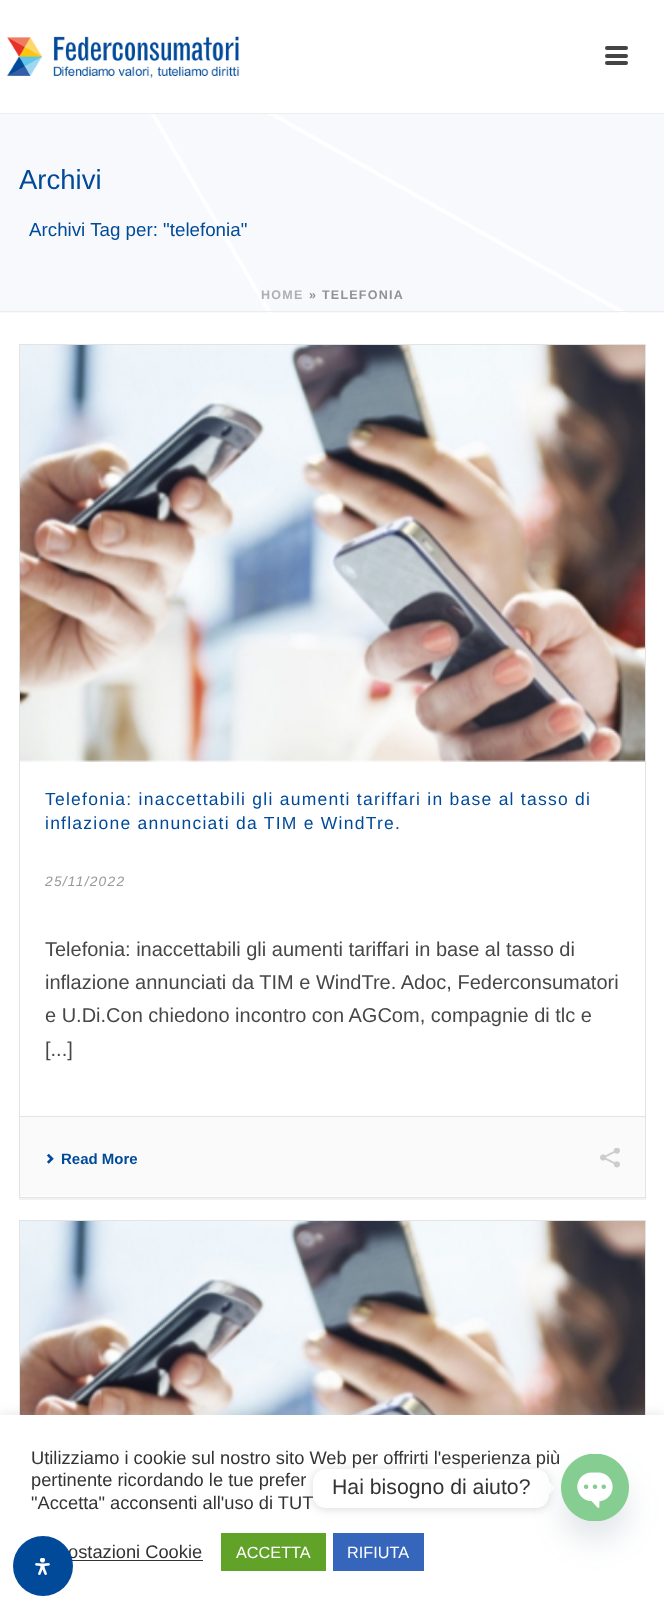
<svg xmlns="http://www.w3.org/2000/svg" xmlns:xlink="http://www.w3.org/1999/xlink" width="664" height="1608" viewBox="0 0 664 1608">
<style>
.cls-1{font:27.5px Liberation Sans;fill:#004a99}
.cls-2{font:18.75px Liberation Sans;fill:#004a99}
.cls-3{font:bold 12.5px Liberation Sans;letter-spacing:1.25px;fill:#afafaf}
.cls-4{font:bold 12.5px Liberation Sans;letter-spacing:1.25px;fill:#919191}
.cls-5{font:17.5px Liberation Sans;letter-spacing:1.25px;fill:#004a99}
.cls-6{font:italic 13.75px Liberation Sans;letter-spacing:1.25px;fill:#999999}
.cls-7{font:20px Liberation Sans;fill:#474747}
.cls-8{font:bold 15px Liberation Sans;fill:#004a99}
.cls-9{font:18.3px Liberation Sans;fill:#333333}
.cls-10{font:16.25px Liberation Sans;fill:#ffffff}
.cls-11{font:21.25px Liberation Sans;fill:#333333}
</style>
<rect width="100%" height="100%" fill="#f7f9fc"/>
<image xlink:href="image0.png" x="149" y="114" width="481" height="199"/>
<rect fill="#ededed" x="0" y="311" width="664" height="1"/>
<rect fill="#ededed" x="0" y="113" width="664" height="1"/>
<rect fill="#ffffff" x="0" y="0" width="664" height="113"/>
<image xlink:href="image1.png" x="6" y="36" width="234" height="42"/>
<rect fill="#444444" x="605" y="46" width="23" height="4" rx="2"/>
<rect fill="#444444" x="605" y="54" width="23" height="4" rx="2"/>
<rect fill="#444444" x="605" y="61" width="23" height="4" rx="2"/>
<rect fill="#ffffff" x="0" y="313" width="664" height="1102"/>
<rect fill="#000000" fill-opacity="0.05" filter="blur(0.5px)" x="19" y="346" width="627" height="854"/>
<rect fill="#ffffff" x="20" y="760" width="625" height="437"/>
<rect fill="none" stroke="#e3e3e3" x="19.5" y="344.5" width="626" height="853"/>
<image xlink:href="image2.png" x="20" y="345" width="625" height="417"/>
<rect fill="#fafafa" x="20" y="1117" width="625" height="79"/>
<rect fill="#e3e3e3" x="20" y="1116" width="625" height="1"/>
<image xlink:href="image3.png" x="47" y="1154" width="7" height="10"/>
<image xlink:href="image4.png" x="600" y="1148" width="20" height="20"/>
<rect fill="none" stroke="#e3e3e3" x="19.5" y="1220.5" width="626" height="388"/>
<image xlink:href="image5.png" x="20" y="1221" width="625" height="194"/>
<rect fill="#acabab" fill-opacity="0.3" filter="blur(6px)" x="0" y="1414" width="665" height="194"/>
<rect fill="#ffffff" x="0" y="1415" width="664" height="193"/>
<rect fill="#333333" x="72" y="1560" width="131" height="1"/>
<rect fill="#61a229" x="221" y="1533" width="105" height="38"/>
<rect fill="#3566bb" x="333" y="1533" width="91" height="38"/>
<rect fill="#000000" fill-opacity="0.15" filter="blur(5px)" x="313" y="1470" width="236" height="39" rx="13"/>
<path fill="#ffffff" d="M549 1494.5V1482L555 1488Z"/>
<text class="cls-1" x="19" y="189">Archivi</text>
<text class="cls-2" x="29" y="236">Archivi Tag per: "telefonia"</text>
<text class="cls-3" x="261" y="299">HOME</text>
<text class="cls-4" x="309" y="299">» TELEFONIA</text>
<text class="cls-5"><tspan x="45" y="805">Telefonia: inaccettabili gli aumenti tariffari in base al tasso di</tspan><tspan x="45" y="829">inflazione annunciati da TIM e WindTre.</tspan></text>
<text class="cls-6" x="45" y="886">25/11/2022</text>
<text class="cls-7"><tspan x="45" y="956">Telefonia: inaccettabili gli aumenti tariffari in base al tasso di</tspan><tspan x="45" y="989">inflazione annunciati da TIM e WindTre. Adoc, Federconsumatori</tspan><tspan x="45" y="1022">e U.Di.Con chiedono incontro con AGCom, compagnie di tlc e</tspan><tspan x="45" y="1056">[...]</tspan></text>
<text class="cls-8" x="61" y="1164">Read More</text>
<text class="cls-9"><tspan x="31" y="1464">Utilizziamo i cookie sul nostro sito Web per offrirti l'esperienza più</tspan><tspan x="31" y="1486">pertinente ricordando le tue prefer</tspan><tspan x="31" y="1509">"Accetta" acconsenti all'uso di TUT</tspan></text>
<text class="cls-9" x="68" y="1558">ostazioni Cookie</text>
<text class="cls-10" x="236" y="1558">ACCETTA</text>
<text class="cls-10" x="347" y="1558">RIFIUTA</text>
<rect fill="#ffffff" x="313" y="1469" width="236" height="39" rx="13"/>
<text class="cls-11" x="332" y="1494">Hai bisogno di aiuto?</text>
<rect fill="#49687e" fill-opacity="0.16" filter="blur(15px)" x="561" y="1474" width="68" height="67" rx="33.5"/>
<image xlink:href="image6.png" x="561" y="1454" width="68" height="67"/>
<circle fill="#004a99" cx="43" cy="1566" r="30"/>
<image xlink:href="image7.png" x="35" y="1558" width="15" height="17"/>
</svg>
